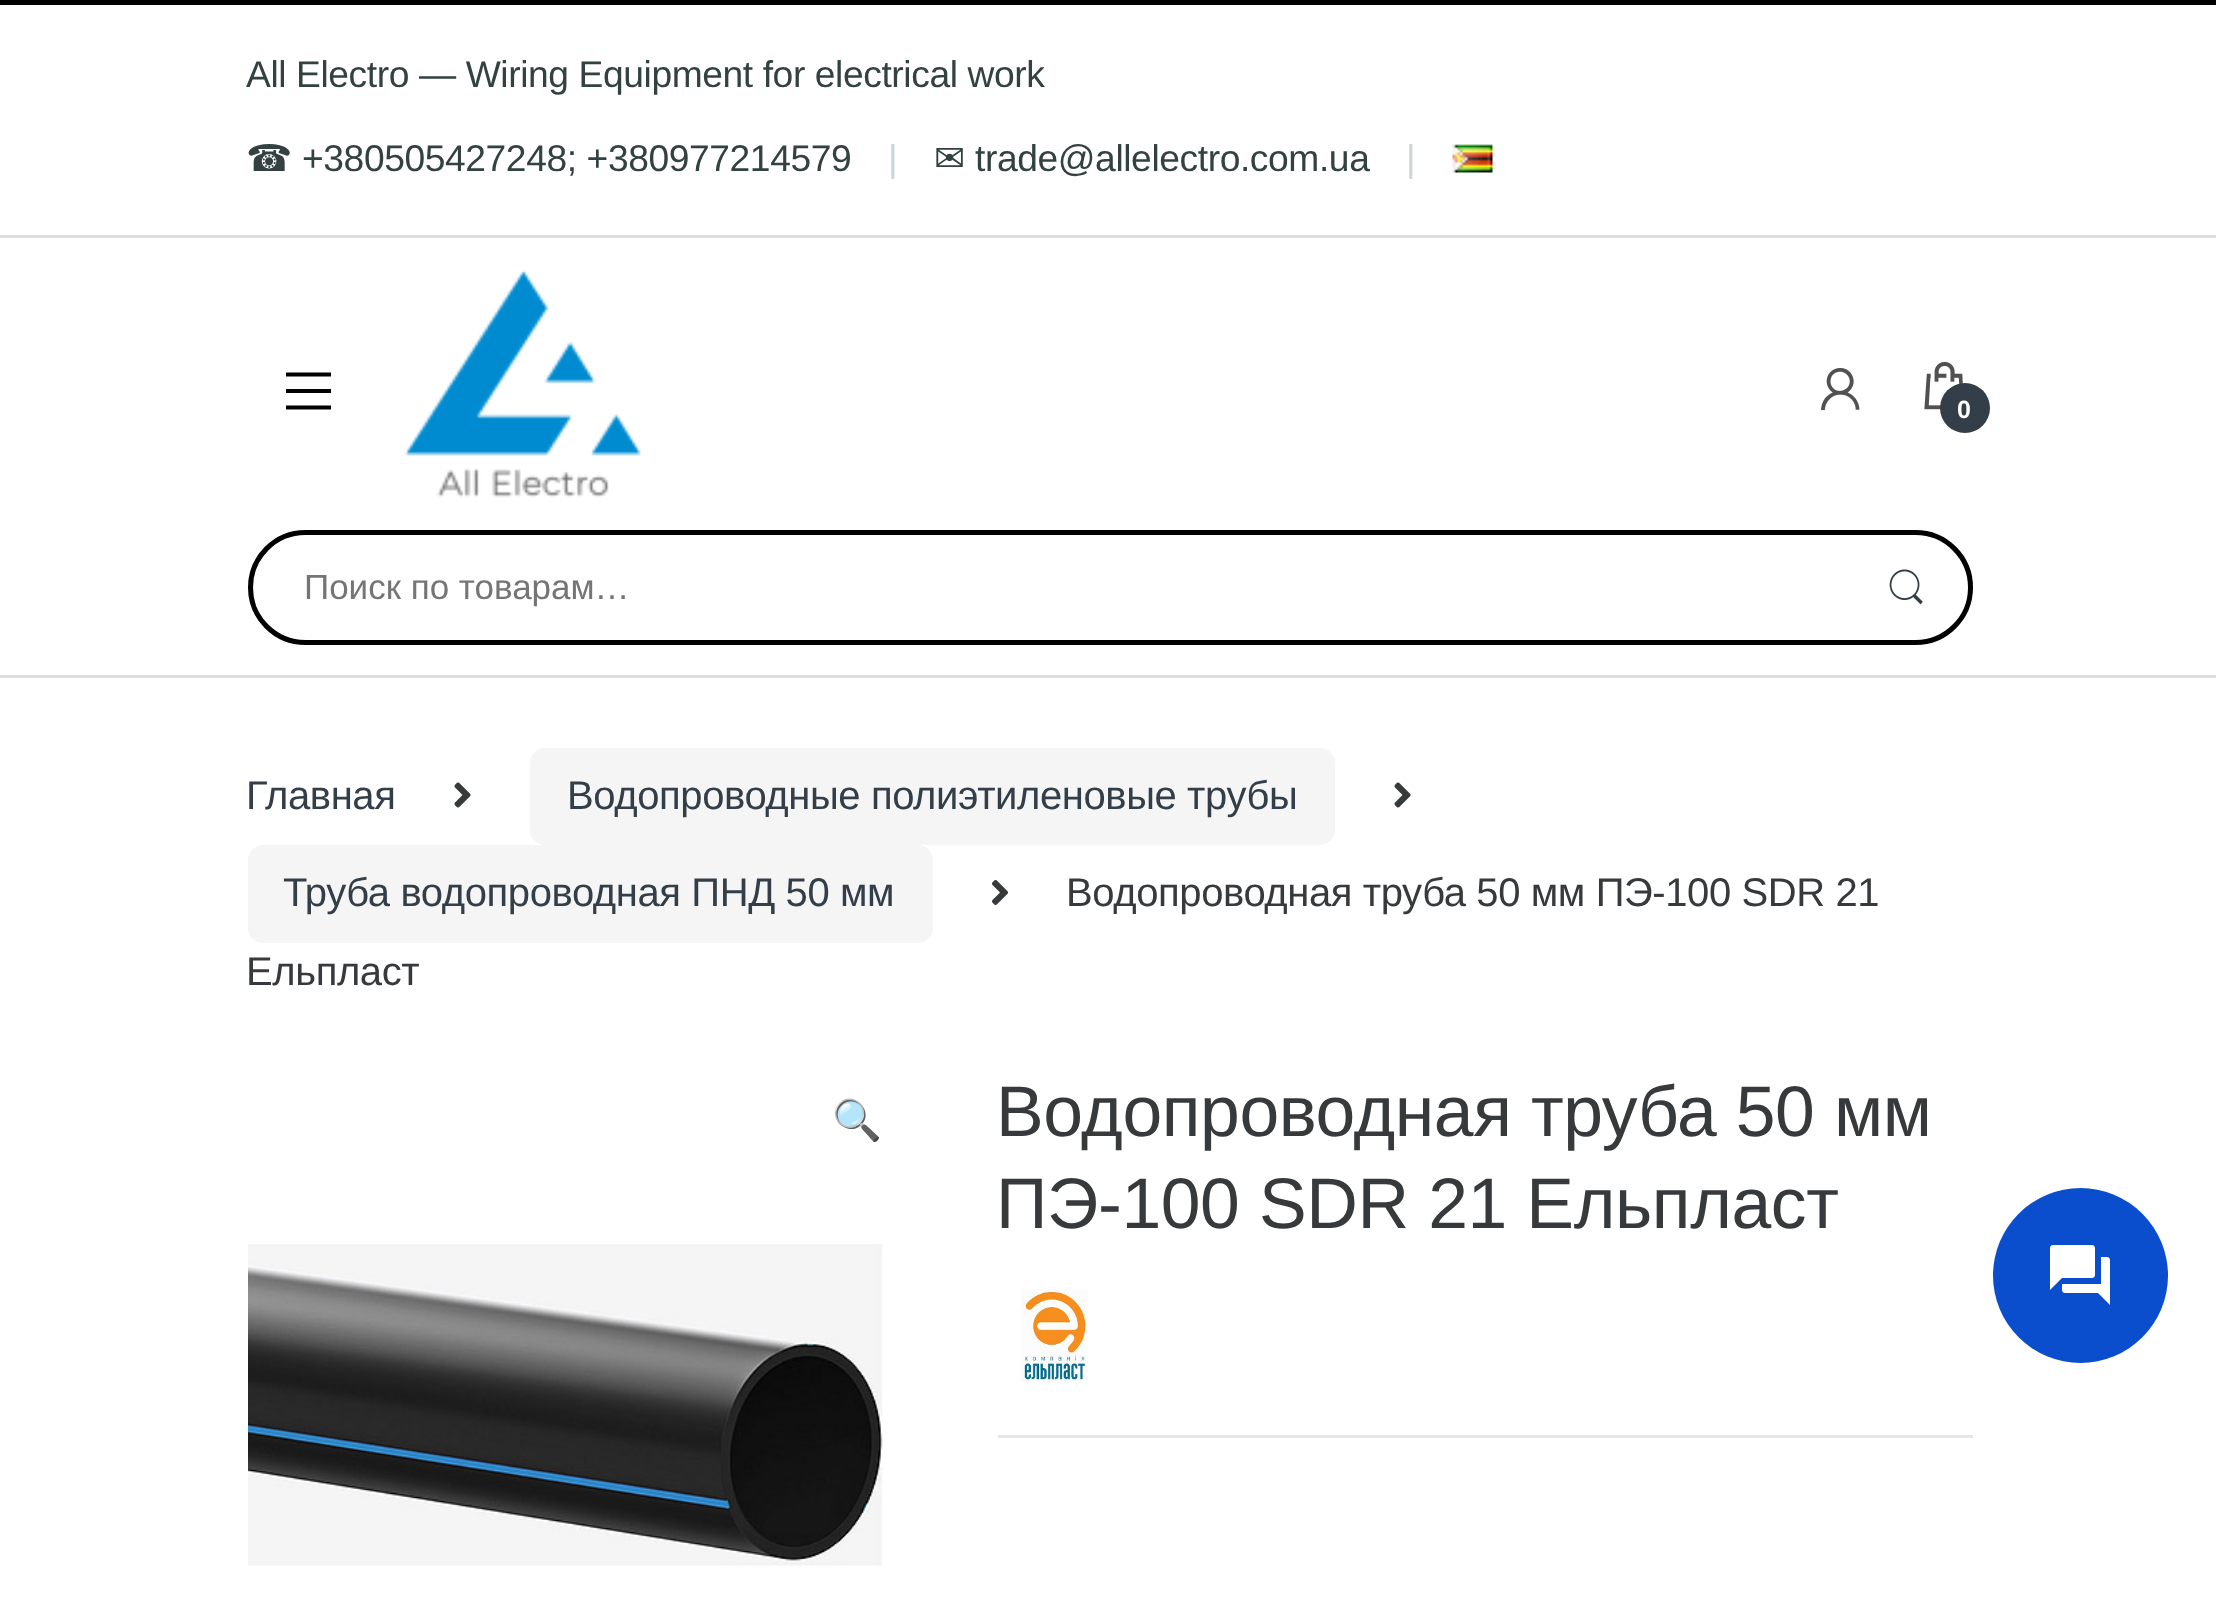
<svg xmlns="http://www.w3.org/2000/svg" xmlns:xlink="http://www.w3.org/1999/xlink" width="2216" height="1611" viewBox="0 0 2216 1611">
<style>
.cls-1{font:37.2px Liberation Sans;letter-spacing:-0.4px;fill:#334141}
.cls-2{font:37.2px DejaVu Sans;letter-spacing:-0.4px;fill:#334141}
.cls-3{font:37.2px Liberation Sans;letter-spacing:-0.4px;fill:#cad5d5}
.cls-4{font:bold 25px Liberation Sans;letter-spacing:-0.4px;fill:#ffffff}
.cls-5{font:35px Liberation Sans;fill:#757575}
.cls-6{font:40px Liberation Sans;letter-spacing:-0.4px;fill:#333e48}
.cls-7{font:40px Liberation Sans;letter-spacing:-0.4px;fill:#373a3c}
.cls-8{font:40px Noto Color Emoji;letter-spacing:-0.4px;fill:#0275d8}
.cls-9{font:71.5px Liberation Sans;letter-spacing:-0.4px;fill:#373a3c}
</style>
<rect width="100%" height="100%" fill="#ffffff"/>
<rect fill="#000000" x="0" y="0" width="2216" height="5"/>
<rect fill="#dddddd" x="0" y="235" width="2216" height="3"/>
<image xlink:href="image0.png" x="1452" y="144" width="41" height="29"/>
<rect fill="#dddddd" x="0" y="675" width="2216" height="3"/>
<path fill="none" stroke="#000000" stroke-width="4.1" d="M286 374.5H331M286 391H331M286 407.5H331"/>
<image xlink:href="image1.png" x="404" y="269" width="237" height="229"/>
<image xlink:href="image2.png" x="1821" y="368" width="39" height="43"/>
<image xlink:href="image3.png" x="1924" y="361" width="39" height="49"/>
<circle fill="#333e48" cx="1965" cy="408" r="25"/>
<rect fill="none" stroke="#000000" stroke-width="5" x="250.5" y="532.5" width="1720" height="110" rx="55"/>
<image xlink:href="image4.png" x="1889" y="569" width="34" height="36"/>
<image xlink:href="image5.png" x="454" y="782" width="17" height="26"/>
<rect fill="#f5f5f5" x="530" y="748" width="805" height="97" rx="15"/>
<image xlink:href="image5.png" x="1394" y="782" width="17" height="26"/>
<rect fill="#f5f5f5" x="248" y="845" width="685" height="98" rx="15"/>
<image xlink:href="image6.png" x="992" y="880" width="16" height="25"/>
<image xlink:href="image7.png" x="248" y="1244" width="635" height="322"/>
<image xlink:href="image8.png" x="1021" y="1289" width="67" height="94"/>
<rect fill="#e6e6e6" x="998" y="1435" width="975" height="3"/>
<circle fill="#0a4ecd" cx="2080.5" cy="1275.5" r="87.5"/>
<image xlink:href="image9.png" x="2050" y="1245" width="60" height="60"/>
<text class="cls-1" x="246" y="87">All Electro — Wiring Equipment for electrical work</text>
<text class="cls-2" x="246" y="171">☎</text>
<text class="cls-1" x="302" y="171">+380505427248; +380977214579</text>
<text class="cls-3" x="888" y="171">|</text>
<text class="cls-2" x="934" y="171">✉</text>
<text class="cls-1" x="975" y="171">trade@allelectro.com.ua</text>
<text class="cls-3" x="1406" y="171">|</text>
<text class="cls-4" x="1957" y="418">0</text>
<text class="cls-5" x="304" y="599">Поиск по товарам…</text>
<text class="cls-6" x="246" y="809">Главная</text>
<text class="cls-6" x="567" y="809">Водопроводные полиэтиленовые трубы</text>
<text class="cls-6" x="283" y="906">Труба водопроводная ПНД 50 мм</text>
<text class="cls-7" x="1066" y="906">Водопроводная труба 50 мм ПЭ-100 SDR 21</text>
<text class="cls-7" x="246" y="985">Ельпласт</text>
<text class="cls-8" x="832" y="1134">🔍</text>
<text class="cls-9"><tspan x="996" y="1136">Водопроводная труба 50 мм</tspan><tspan x="996" y="1228">ПЭ-100 SDR 21 Ельпласт</tspan></text>
</svg>
